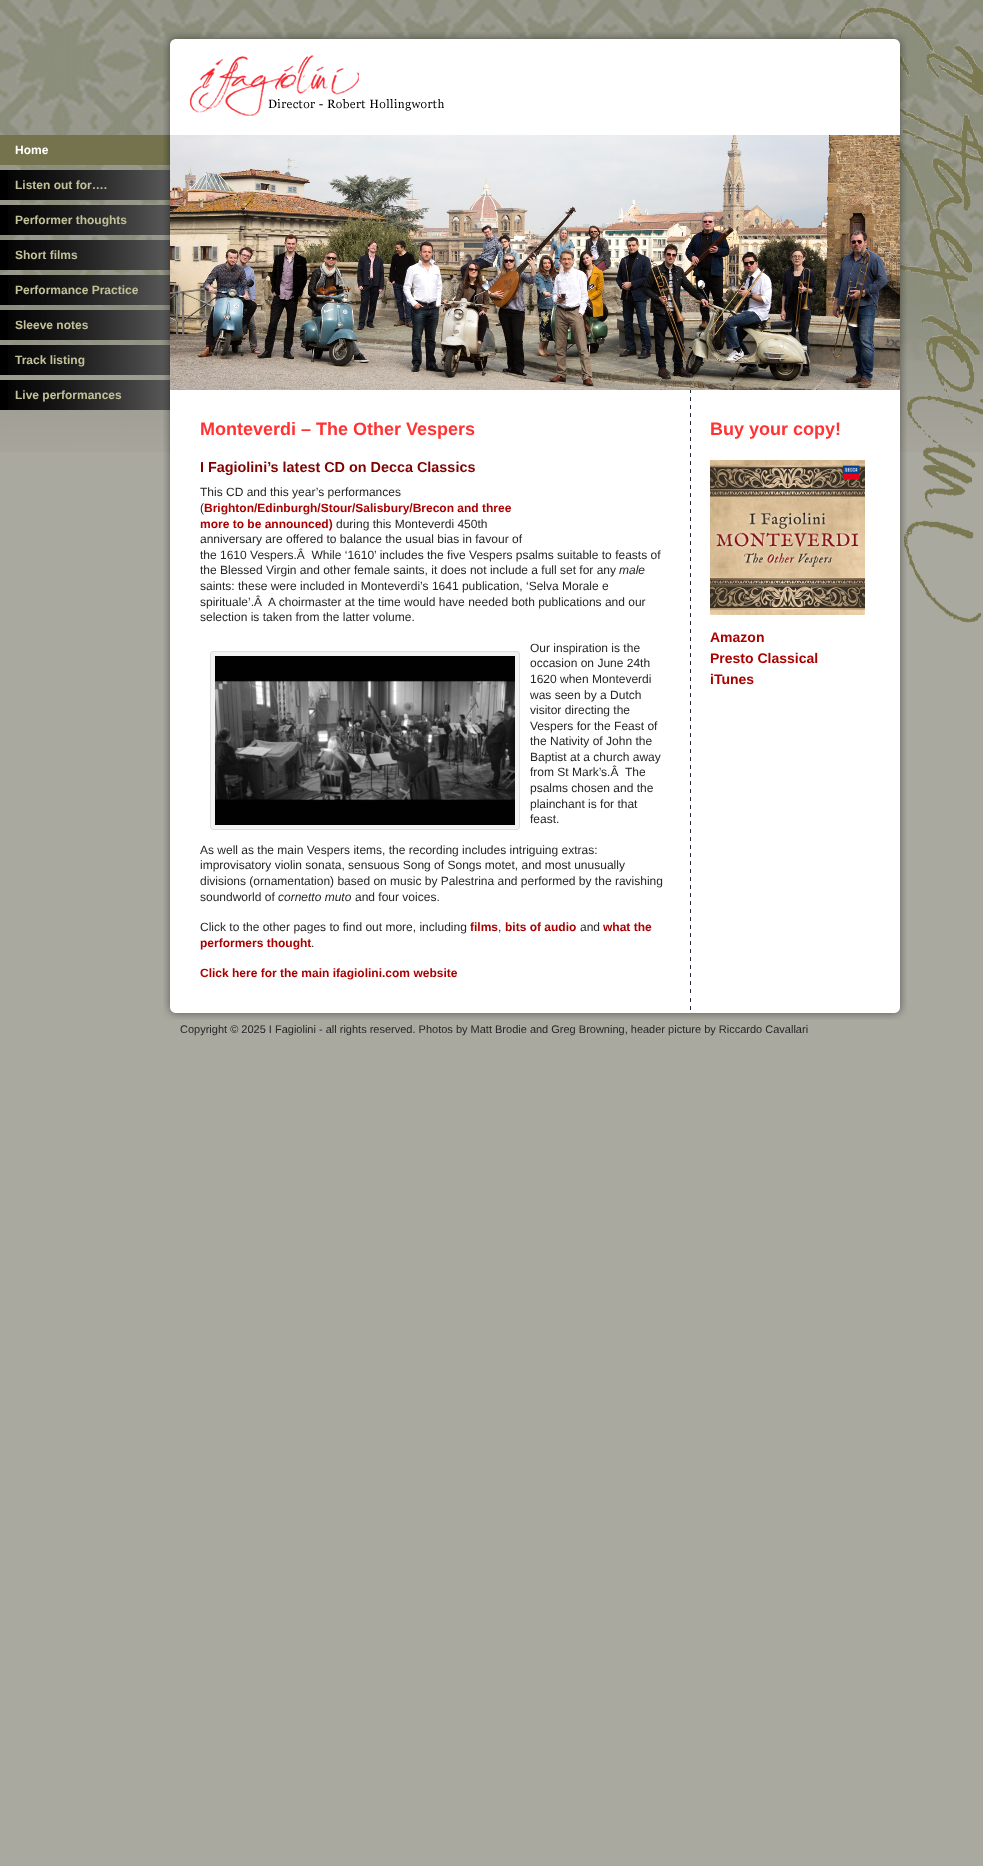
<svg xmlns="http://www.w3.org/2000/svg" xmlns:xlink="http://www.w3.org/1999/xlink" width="983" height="1866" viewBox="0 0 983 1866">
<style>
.cls-1{font:bold 12px Liberation Sans;fill:#ffffff}
.cls-2{font:bold 12px Liberation Sans;fill:#c3c19a}
.cls-3{font:bold 18px Liberation Sans;fill:#ff3333}
.cls-4{font:bold 14.4px Liberation Sans;fill:#800000}
.cls-5{font:12px Liberation Sans;fill:#252525}
.cls-6{font:bold 12px Liberation Sans;fill:#ab0000}
.cls-7{font:italic 12px Liberation Sans;fill:#252525}
.cls-8{font:bold 14px Liberation Sans;fill:#ab0000}
.cls-9{font:11px Liberation Sans;fill:#252525}
</style>
<rect width="100%" height="100%" fill="#aaa9a0"/>
<image xlink:href="image0.png" x="0" y="0" width="983" height="452"/>
<image xlink:href="image1.png" x="839" y="7" width="144" height="616"/>
<image xlink:href="image2.png" x="163" y="32" width="744" height="98"/>
<image xlink:href="image3.png" x="190" y="55" width="254" height="61"/>
<image xlink:href="image4.png" x="163" y="130" width="744" height="867"/>
<rect fill="#74734d" x="0" y="135" width="163" height="30"/>
<image xlink:href="image5.png" x="163" y="135" width="7" height="30"/>
<rect fill="#000000" x="0" y="170" width="8" height="30"/>
<image xlink:href="image6.png" x="8" y="170" width="162" height="30"/>
<rect fill="#000000" x="0" y="205" width="8" height="30"/>
<image xlink:href="image6.png" x="8" y="205" width="162" height="30"/>
<rect fill="#000000" x="0" y="240" width="8" height="30"/>
<image xlink:href="image6.png" x="8" y="240" width="162" height="30"/>
<rect fill="#000000" x="0" y="275" width="8" height="30"/>
<image xlink:href="image6.png" x="8" y="275" width="162" height="30"/>
<rect fill="#000000" x="0" y="310" width="8" height="30"/>
<image xlink:href="image6.png" x="8" y="310" width="162" height="30"/>
<rect fill="#000000" x="0" y="345" width="8" height="30"/>
<image xlink:href="image6.png" x="8" y="345" width="162" height="30"/>
<rect fill="#000000" x="0" y="380" width="8" height="30"/>
<image xlink:href="image6.png" x="8" y="380" width="162" height="30"/>
<rect fill="#ffffff" x="690" y="133" width="1" height="2"/>
<image xlink:href="image7.png" x="170" y="135" width="730" height="255"/>
<rect fill="#f3f3f3" stroke="#dddddd" x="210.5" y="651.5" width="309" height="178" rx="2.5"/>
<image xlink:href="image8.png" x="215" y="656" width="300" height="169"/>
<image xlink:href="image9.png" x="710" y="460" width="155" height="155"/>
<image xlink:href="image10.png" x="163" y="997" width="744" height="23"/>
<text class="cls-1" x="15" y="154">Home</text>
<text class="cls-2" x="15" y="189">Listen out for….</text>
<text class="cls-2" x="15" y="224">Performer thoughts</text>
<text class="cls-2" x="15" y="259">Short films</text>
<text class="cls-2" x="15" y="294">Performance Practice</text>
<text class="cls-2" x="15" y="329">Sleeve notes</text>
<text class="cls-2" x="15" y="364">Track listing</text>
<text class="cls-2" x="15" y="399">Live performances</text>
<text class="cls-3" x="200" y="435">Monteverdi – The Other Vespers</text>
<text class="cls-4" x="200" y="472">I Fagiolini’s latest CD on Decca Classics</text>
<text class="cls-5"><tspan x="200" y="496">This CD and this year’s performances</tspan><tspan x="200" y="512">(</tspan></text>
<text class="cls-6" x="204" y="512">Brighton/Edinburgh/Stour/Salisbury/Brecon and three</text>
<text class="cls-6" x="200" y="528">more to be announced)</text>
<text class="cls-5" x="336" y="528">during this Monteverdi 450th</text>
<text class="cls-5" xml:space="preserve"><tspan x="200" y="543">anniversary are offered to balance the usual bias in favour of</tspan><tspan x="200" y="559">the 1610 Vespers.Â  While ‘1610’ includes the five Vespers psalms suitable to feasts of</tspan><tspan x="200" y="574">the Blessed Virgin and other female saints, it does not include a full set for any</tspan></text>
<text class="cls-7" x="619" y="574">male</text>
<text class="cls-5" xml:space="preserve"><tspan x="200" y="590">saints: these were included in Monteverdi’s 1641 publication, ‘Selva Morale e</tspan><tspan x="200" y="606">spirituale’.Â  A choirmaster at the time would have needed both publications and our</tspan><tspan x="200" y="621">selection is taken from the latter volume.</tspan></text>
<text class="cls-5" xml:space="preserve"><tspan x="530" y="652">Our inspiration is the</tspan><tspan x="530" y="667">occasion on June 24th</tspan><tspan x="530" y="683">1620 when Monteverdi</tspan><tspan x="530" y="699">was seen by a Dutch</tspan><tspan x="530" y="714">visitor directing the</tspan><tspan x="530" y="730">Vespers for the Feast of</tspan><tspan x="530" y="745">the Nativity of John the</tspan><tspan x="530" y="761">Baptist at a church away</tspan><tspan x="530" y="776">from St Mark’s.Â  The</tspan><tspan x="530" y="792">psalms chosen and the</tspan><tspan x="530" y="808">plainchant is for that</tspan><tspan x="530" y="823">feast.</tspan></text>
<text class="cls-5"><tspan x="200" y="854">As well as the main Vespers items, the recording includes intriguing extras:</tspan><tspan x="200" y="869">improvisatory violin sonata, sensuous Song of Songs motet, and most unusually</tspan><tspan x="200" y="885">divisions (ornamentation) based on music by Palestrina and performed by the ravishing</tspan><tspan x="200" y="901">soundworld of</tspan></text>
<text class="cls-7" x="278" y="901">cornetto muto</text>
<text class="cls-5" x="355" y="901">and four voices.</text>
<text class="cls-5" x="200" y="931">Click to the other pages to find out more, including</text>
<text class="cls-6" x="470" y="931">films</text>
<text class="cls-5" x="498" y="931">,</text>
<text class="cls-6" x="505" y="931">bits of audio</text>
<text class="cls-5" x="580" y="931">and</text>
<text class="cls-6" x="603" y="931">what the</text>
<text class="cls-6" x="200" y="947">performers thought</text>
<text class="cls-5" x="311" y="947">.</text>
<text class="cls-6" x="200" y="977">Click here for the main ifagiolini.com website</text>
<text class="cls-3" x="710" y="435">Buy your copy!</text>
<text class="cls-8"><tspan x="710" y="642">Amazon</tspan><tspan x="710" y="663">Presto Classical</tspan><tspan x="710" y="684">iTunes</tspan></text>
<text class="cls-9" x="180" y="1033">Copyright © 2025 I Fagiolini - all rights reserved. Photos by Matt Brodie and Greg Browning, header picture by Riccardo Cavallari</text>
</svg>
